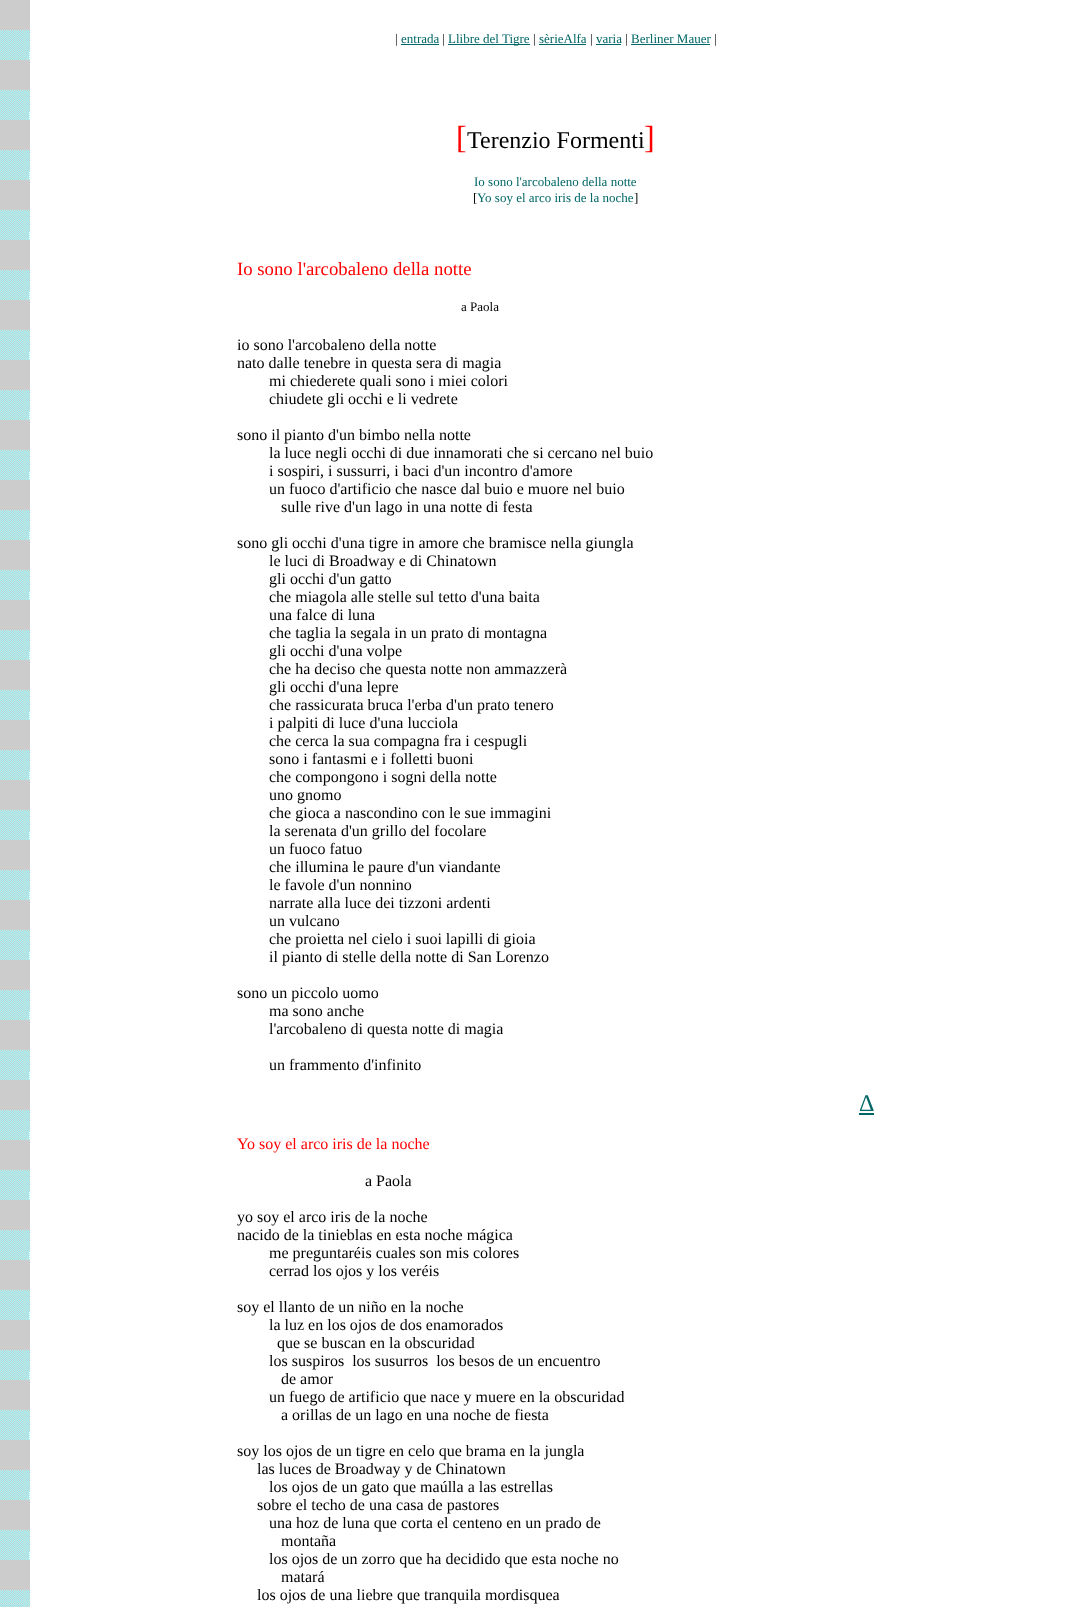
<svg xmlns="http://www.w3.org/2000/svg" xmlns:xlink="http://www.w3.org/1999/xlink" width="1070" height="1607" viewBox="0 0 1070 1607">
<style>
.cls-1{font:13px Liberation Serif;fill:#000000}
.cls-2{font:13px Liberation Serif;fill:#006666}
.cls-3{font:32px Liberation Serif;fill:#ff0000}
.cls-4{font:24px Liberation Serif;fill:#000000}
.cls-5{font:18.75px Liberation Serif;fill:#ff0000}
.cls-6{font:16px Liberation Serif;fill:#000000}
.cls-7{font:24px Liberation Serif;fill:#006666}
.cls-8{font:16px Liberation Serif;fill:#ff0000}
</style>
<rect width="100%" height="100%" fill="#ffffff"/>
<image xlink:href="image0.png" x="0" y="0" width="1070" height="1607"/>
<rect fill="#006666" x="401" y="44" width="38" height="1"/>
<rect fill="#006666" x="448" y="44" width="82" height="1"/>
<rect fill="#006666" x="539" y="44" width="47" height="1"/>
<rect fill="#006666" x="596" y="44" width="25" height="1"/>
<rect fill="#006666" x="631" y="44" width="79" height="1"/>
<rect fill="#006666" x="859" y="1113" width="15" height="2"/>
<text class="cls-1" x="395" y="43">|</text>
<text class="cls-2" x="401" y="43">entrada</text>
<text class="cls-1" x="442" y="43">|</text>
<text class="cls-2" x="448" y="43">Llibre del Tigre</text>
<text class="cls-1" x="533" y="43">|</text>
<text class="cls-2" x="539" y="43">sèrieAlfa</text>
<text class="cls-1" x="590" y="43">|</text>
<text class="cls-2" x="596" y="43">varia</text>
<text class="cls-1" x="625" y="43">|</text>
<text class="cls-2" x="631" y="43">Berliner Mauer</text>
<text class="cls-1" x="714" y="43">|</text>
<text class="cls-3" x="456" y="148">[</text>
<text class="cls-4" x="467" y="148">Terenzio Formenti</text>
<text class="cls-3" x="644" y="148">]</text>
<text class="cls-2" x="474" y="186">Io sono l'arcobaleno della notte</text>
<text class="cls-1" x="473" y="202">[</text>
<text class="cls-2" x="477" y="202">Yo soy el arco iris de la noche</text>
<text class="cls-1" x="634" y="202">]</text>
<text class="cls-5" x="237" y="275">Io sono l'arcobaleno della notte</text>
<text class="cls-1" x="461" y="311">a Paola</text>
<text class="cls-6"><tspan x="237" y="350">io sono l'arcobaleno della notte</tspan><tspan x="237" y="368">nato dalle tenebre in questa sera di magia</tspan></text>
<text class="cls-6"><tspan x="269" y="386">mi chiederete quali sono i miei colori</tspan><tspan x="269" y="404">chiudete gli occhi e li vedrete</tspan></text>
<text class="cls-6" x="237" y="440">sono il pianto d'un bimbo nella notte</text>
<text class="cls-6"><tspan x="269" y="458">la luce negli occhi di due innamorati che si cercano nel buio</tspan><tspan x="269" y="476">i sospiri, i sussurri, i baci d'un incontro d'amore</tspan><tspan x="269" y="494">un fuoco d'artificio che nasce dal buio e muore nel buio</tspan></text>
<text class="cls-6" x="281" y="512">sulle rive d'un lago in una notte di festa</text>
<text class="cls-6" x="237" y="548">sono gli occhi d'una tigre in amore che bramisce nella giungla</text>
<text class="cls-6"><tspan x="269" y="566">le luci di Broadway e di Chinatown</tspan><tspan x="269" y="584">gli occhi d'un gatto</tspan><tspan x="269" y="602">che miagola alle stelle sul tetto d'una baita</tspan><tspan x="269" y="620">una falce di luna</tspan><tspan x="269" y="638">che taglia la segala in un prato di montagna</tspan><tspan x="269" y="656">gli occhi d'una volpe</tspan><tspan x="269" y="674">che ha deciso che questa notte non ammazzerà</tspan><tspan x="269" y="692">gli occhi d'una lepre</tspan><tspan x="269" y="710">che rassicurata bruca l'erba d'un prato tenero</tspan><tspan x="269" y="728">i palpiti di luce d'una lucciola</tspan><tspan x="269" y="746">che cerca la sua compagna fra i cespugli</tspan><tspan x="269" y="764">sono i fantasmi e i folletti buoni</tspan><tspan x="269" y="782">che compongono i sogni della notte</tspan><tspan x="269" y="800">uno gnomo</tspan><tspan x="269" y="818">che gioca a nascondino con le sue immagini</tspan><tspan x="269" y="836">la serenata d'un grillo del focolare</tspan><tspan x="269" y="854">un fuoco fatuo</tspan><tspan x="269" y="872">che illumina le paure d'un viandante</tspan><tspan x="269" y="890">le favole d'un nonnino</tspan><tspan x="269" y="908">narrate alla luce dei tizzoni ardenti</tspan><tspan x="269" y="926">un vulcano</tspan><tspan x="269" y="944">che proietta nel cielo i suoi lapilli di gioia</tspan><tspan x="269" y="962">il pianto di stelle della notte di San Lorenzo</tspan></text>
<text class="cls-6" x="237" y="998">sono un piccolo uomo</text>
<text class="cls-6"><tspan x="269" y="1016">ma sono anche</tspan><tspan x="269" y="1034">l'arcobaleno di questa notte di magia</tspan></text>
<text class="cls-6" x="269" y="1070">un frammento d'infinito</text>
<text class="cls-7" x="859" y="1111">Δ</text>
<text class="cls-8" x="237" y="1149">Y</text>
<text class="cls-8" x="247" y="1149">o soy el arco iris de la noche</text>
<text class="cls-6" x="365" y="1186">a Paola</text>
<text class="cls-6"><tspan x="237" y="1222">yo soy el arco iris de la noche</tspan><tspan x="237" y="1240">nacido de la tinieblas en esta noche mágica</tspan></text>
<text class="cls-6"><tspan x="269" y="1258">me preguntaréis cuales son mis colores</tspan><tspan x="269" y="1276">cerrad los ojos y los veréis</tspan></text>
<text class="cls-6" x="237" y="1312">soy el llanto de un niño en la noche</text>
<text class="cls-6" x="269" y="1330">la luz en los ojos de dos enamorados</text>
<text class="cls-6" x="277" y="1348">que se buscan en la obscuridad</text>
<text class="cls-6" xml:space="preserve" x="269" y="1366">los suspiros  los susurros  los besos de un encuentro</text>
<text class="cls-6" x="281" y="1384">de amor</text>
<text class="cls-6" x="269" y="1402">un fuego de artificio que nace y muere en la obscuridad</text>
<text class="cls-6" x="281" y="1420">a orillas de un lago en una noche de fiesta</text>
<text class="cls-6" x="237" y="1456">soy los ojos de un tigre en celo que brama en la jungla</text>
<text class="cls-6" x="257" y="1474">las luces de Broadway y de Chinatown</text>
<text class="cls-6" x="269" y="1492">los ojos de un gato que maúlla a las estrellas</text>
<text class="cls-6" x="257" y="1510">sobre el techo de una casa de pastores</text>
<text class="cls-6" x="269" y="1528">una hoz de luna que corta el centeno en un prado de</text>
<text class="cls-6" x="281" y="1546">montaña</text>
<text class="cls-6" x="269" y="1564">los ojos de un zorro que ha decidido que esta noche no</text>
<text class="cls-6" x="281" y="1582">matará</text>
<text class="cls-6" x="257" y="1600">los ojos de una liebre que tranquila mordisquea</text>
</svg>
